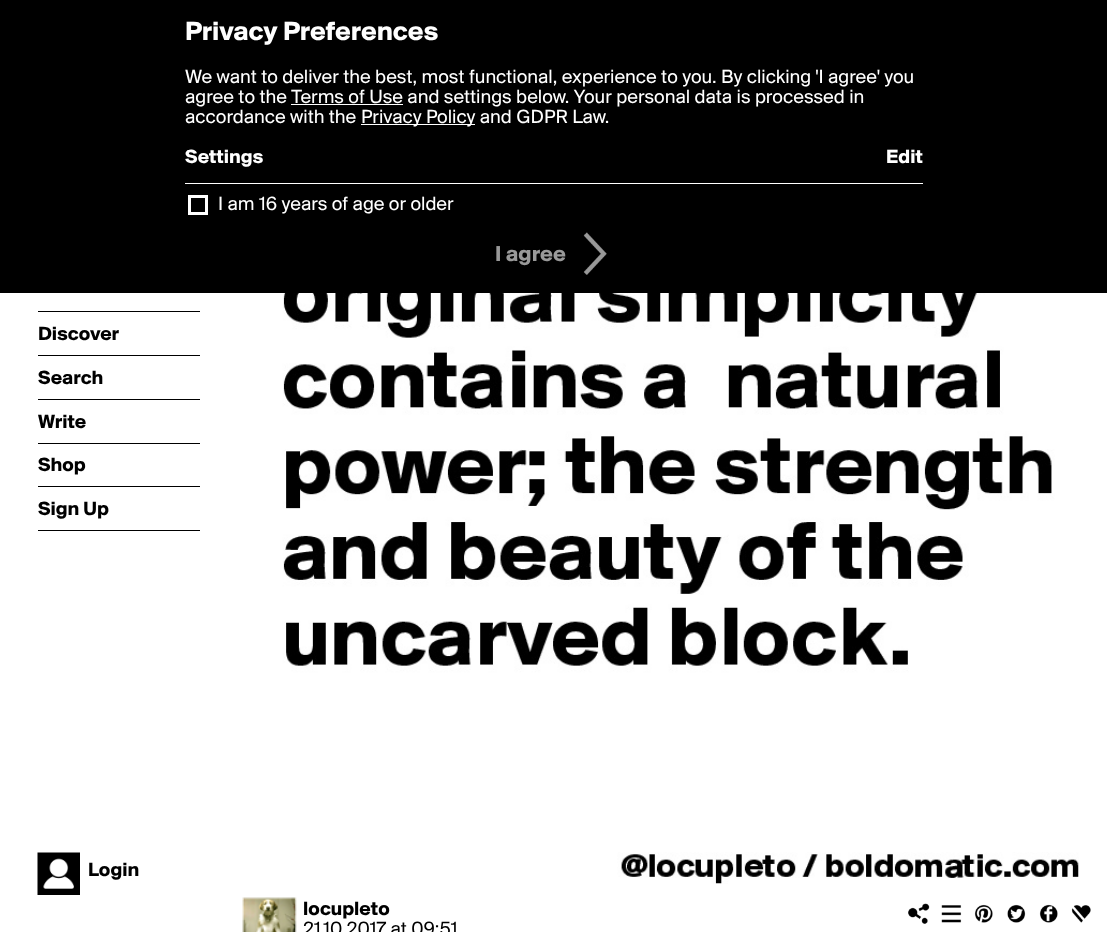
<svg xmlns="http://www.w3.org/2000/svg" xmlns:xlink="http://www.w3.org/1999/xlink" width="1107" height="932" viewBox="0 0 1107 932">
<style>
.cls-1{font:bold 27.5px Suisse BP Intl;fill:#ffffff}
.cls-2{font:20px Suisse BP Intl;fill:#ffffff}
.cls-3{font:bold 20px Suisse BP Intl;fill:#ffffff}
.cls-4{font:bold 22.5px Suisse BP Intl;fill:#999999}
.cls-5{font:bold 20px Suisse BP Intl;fill:#000000}
.cls-6{font:20px Suisse BP Intl;fill:#000000}
</style>
<rect width="100%" height="100%" fill="#ffffff"/>
<rect fill="#000000" x="0" y="0" width="1107" height="293"/>
<rect fill="#ffffff" x="291" y="104" width="112" height="1"/>
<rect fill="#ffffff" x="361" y="124" width="114" height="1"/>
<rect fill="#ffffff" x="185" y="183" width="738" height="1"/>
<rect fill="none" stroke="#ffffff" stroke-width="3" x="189.5" y="196.5" width="17" height="17"/>
<image xlink:href="image0.png" x="583" y="232" width="24" height="43"/>
<rect fill="#000000" x="38" y="311" width="162" height="1"/>
<rect fill="#000000" x="38" y="355" width="162" height="1"/>
<rect fill="#000000" x="38" y="399" width="162" height="1"/>
<rect fill="#000000" x="38" y="443" width="162" height="1"/>
<rect fill="#000000" x="38" y="486" width="162" height="1"/>
<rect fill="#000000" x="38" y="530" width="162" height="1"/>
<image xlink:href="image1.png" x="37" y="852" width="43" height="43"/>
<image xlink:href="image2.png" x="280" y="293" width="799" height="591"/>
<image xlink:href="image3.png" x="242" y="897" width="55" height="35"/>
<image xlink:href="image4.png" x="908" y="903" width="22" height="21"/>
<image xlink:href="image5.png" x="941" y="905" width="21" height="18"/>
<image xlink:href="image6.png" x="974" y="904" width="19" height="19"/>
<image xlink:href="image7.png" x="1007" y="904" width="19" height="19"/>
<image xlink:href="image8.png" x="1039" y="904" width="19" height="19"/>
<image xlink:href="image9.png" x="1071" y="905" width="20" height="18"/>
<text class="cls-1" x="185" y="40">Privacy Preferences</text>
<text class="cls-2"><tspan x="185" y="83">We want to deliver the best, most functional, experience to you. By clicking 'I agree' you</tspan><tspan x="185" y="103">agree to the Terms of Use and settings below. Your personal data is processed in</tspan><tspan x="185" y="123">accordance with the</tspan></text>
<text class="cls-2" x="361" y="123">Privacy Policy and GDPR Law.</text>
<text class="cls-3" x="185" y="163">Settings</text>
<text class="cls-3" x="886" y="163">Edit</text>
<text class="cls-2" x="218" y="210">I am 16 years of age or older</text>
<text class="cls-4" x="495" y="261">I agree</text>
<text class="cls-5" x="38" y="340">Discover</text>
<text class="cls-5" x="38" y="384">Search</text>
<text class="cls-5" x="38" y="428">Write</text>
<text class="cls-5" x="38" y="471">Shop</text>
<text class="cls-5" x="38" y="515">Sign Up</text>
<text class="cls-5" x="88" y="876">Login</text>
<text class="cls-5" x="303" y="915">locupleto</text>
<text class="cls-6" x="303" y="935">21.10.2017 at 09:51</text>
</svg>
